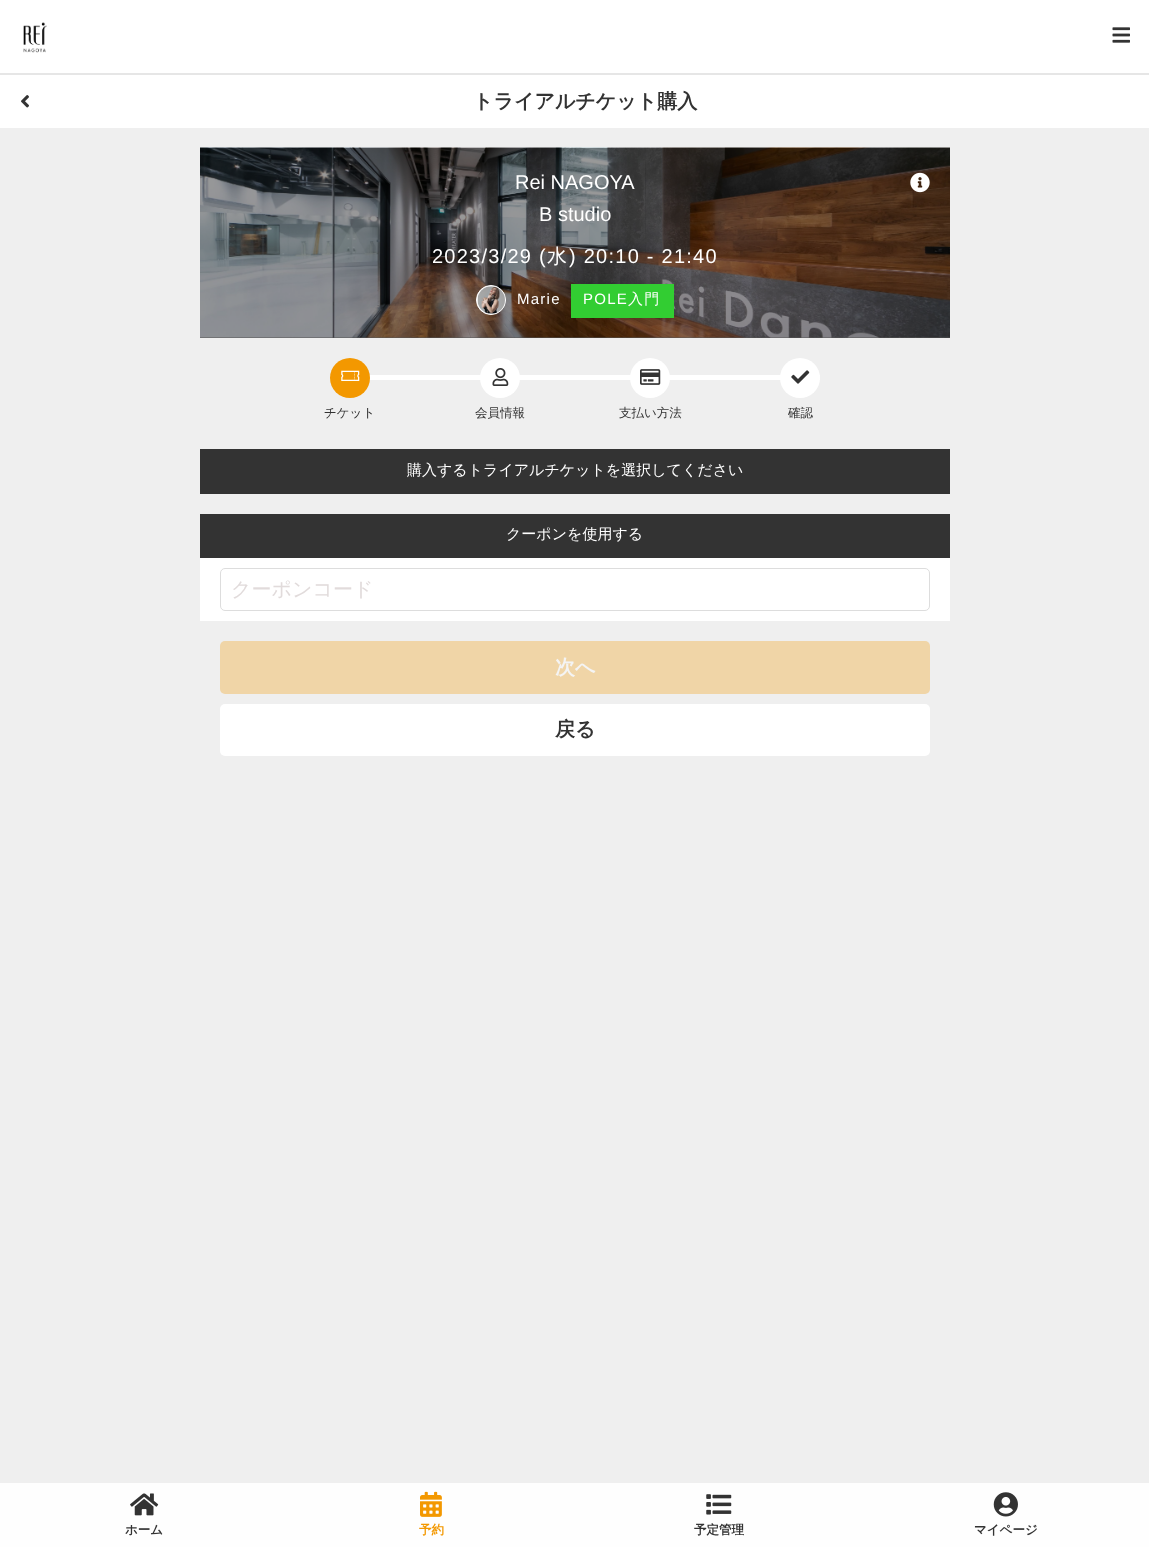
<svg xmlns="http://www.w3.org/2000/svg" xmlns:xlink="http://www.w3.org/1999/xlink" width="1149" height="1547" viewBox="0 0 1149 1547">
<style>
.cls-1{font:bold 20px WenQuanYi Zen Hei;fill:#333333}
.cls-2{font:20px Liberation Sans;fill:#ffffff}
.cls-3{font:20px Liberation Sans;letter-spacing:1.25px;fill:#ffffff}
.cls-4{font:500 20px WenQuanYi Zen Hei;letter-spacing:1.25px;fill:#ffffff}
.cls-5{font:15px Liberation Sans;letter-spacing:1.25px;fill:#ffffff}
.cls-6{font:500 15px WenQuanYi Zen Hei;letter-spacing:1.25px;fill:#ffffff}
.cls-7{font:500 12.5px WenQuanYi Zen Hei;fill:#333333}
.cls-8{font:500 15px WenQuanYi Zen Hei;fill:#ffffff}
.cls-9{font:500 20px WenQuanYi Zen Hei;fill:#e1dbdb}
.cls-10{font:bold 20px WenQuanYi Zen Hei;fill:#f4f4f4}
.cls-11{font:bold 12.5px WenQuanYi Zen Hei;fill:#333333}
.cls-12{font:bold 12.5px WenQuanYi Zen Hei;fill:#f39800}
</style>
<rect width="100%" height="100%" fill="#efefef"/>
<rect fill="#ffffff" x="0" y="0" width="1149" height="73"/>
<rect fill="#e6e6e6" x="0" y="73" width="1149" height="2"/>
<image xlink:href="image0.png" x="23" y="22" width="24" height="31"/>
<image xlink:href="image1.png" x="1112" y="27" width="18" height="16"/>
<rect fill="#ffffff" x="0" y="75" width="1149" height="53"/>
<image xlink:href="image2.png" x="21" y="95" width="8" height="13"/>
<rect fill="#565656" x="200" y="337" width="750" height="1"/>
<image xlink:href="image3.png" x="200" y="147" width="750" height="191"/>
<image xlink:href="image4.png" x="910" y="172" width="20" height="21"/>
<circle fill="#ffffff" stroke="#ffffff" cx="491" cy="300" r="14.5"/>
<image xlink:href="image5.png" x="477" y="286" width="28" height="28"/>
<rect fill="#32cd32" x="571" y="284" width="103" height="34"/>
<rect fill="#ffffff" x="330" y="375" width="490" height="5"/>
<circle fill="#f39800" cx="350" cy="378" r="20"/>
<image xlink:href="image6.png" x="341" y="370" width="19" height="11"/>
<circle fill="#ffffff" cx="500" cy="378" r="20"/>
<image xlink:href="image7.png" x="492" y="368" width="17" height="18"/>
<circle fill="#ffffff" cx="650" cy="378" r="20"/>
<image xlink:href="image8.png" x="640" y="369" width="21" height="16"/>
<circle fill="#ffffff" cx="800" cy="378" r="20"/>
<image xlink:href="image9.png" x="791" y="370" width="19" height="14"/>
<rect fill="#333333" x="200" y="449" width="750" height="45"/>
<rect fill="#ffffff" x="200" y="558" width="750" height="63"/>
<rect fill="#333333" x="200" y="514" width="750" height="44"/>
<rect fill="none" stroke="#dddddd" x="220.5" y="568.5" width="709" height="42" rx="4.5"/>
<rect fill="#f0d5a7" x="220" y="641" width="710" height="53" rx="5"/>
<rect fill="#ffffff" x="220" y="704" width="710" height="52" rx="5"/>
<rect fill="#fefefe" x="0" y="1483" width="1149" height="64"/>
<image xlink:href="image10.png" x="130" y="1493" width="29" height="23"/>
<image xlink:href="image11.png" x="420" y="1491" width="22" height="26"/>
<image xlink:href="image12.png" x="706" y="1494" width="26" height="21"/>
<image xlink:href="image13.png" x="993" y="1492" width="25" height="25"/>
<text class="cls-1" x="473" y="108">トライアルチケット購入</text>
<text class="cls-2" x="515" y="189">Rei NAGOYA</text>
<text class="cls-2" x="539" y="221">B studio</text>
<text class="cls-3" x="432" y="263">2023/3/29 (</text>
<text class="cls-4" x="547" y="263">水</text>
<text class="cls-3" x="569" y="263">) 20:10 - 21:40</text>
<text class="cls-5" x="517" y="304">Marie</text>
<text class="cls-5" x="583" y="304">POLE</text>
<text class="cls-6" x="628" y="304">入門</text>
<text class="cls-7" x="324" y="417">チケット</text>
<text class="cls-7" x="475" y="417">会員情報</text>
<text class="cls-7" x="619" y="417">支払い方法</text>
<text class="cls-7" x="788" y="417">確認</text>
<text class="cls-8" x="407" y="475">購入するトライアルチケットを選択してください</text>
<text class="cls-8" x="506" y="539">クーポンを使用する</text>
<text class="cls-9" x="231" y="596">クーポンコード</text>
<text class="cls-10" x="555" y="674">次へ</text>
<text class="cls-1" x="555" y="736">戻る</text>
<text class="cls-11" x="125" y="1534">ホーム</text>
<text class="cls-12" x="419" y="1534">予約</text>
<text class="cls-11" x="694" y="1534">予定管理</text>
<text class="cls-11" x="974" y="1534">マイページ</text>
</svg>
